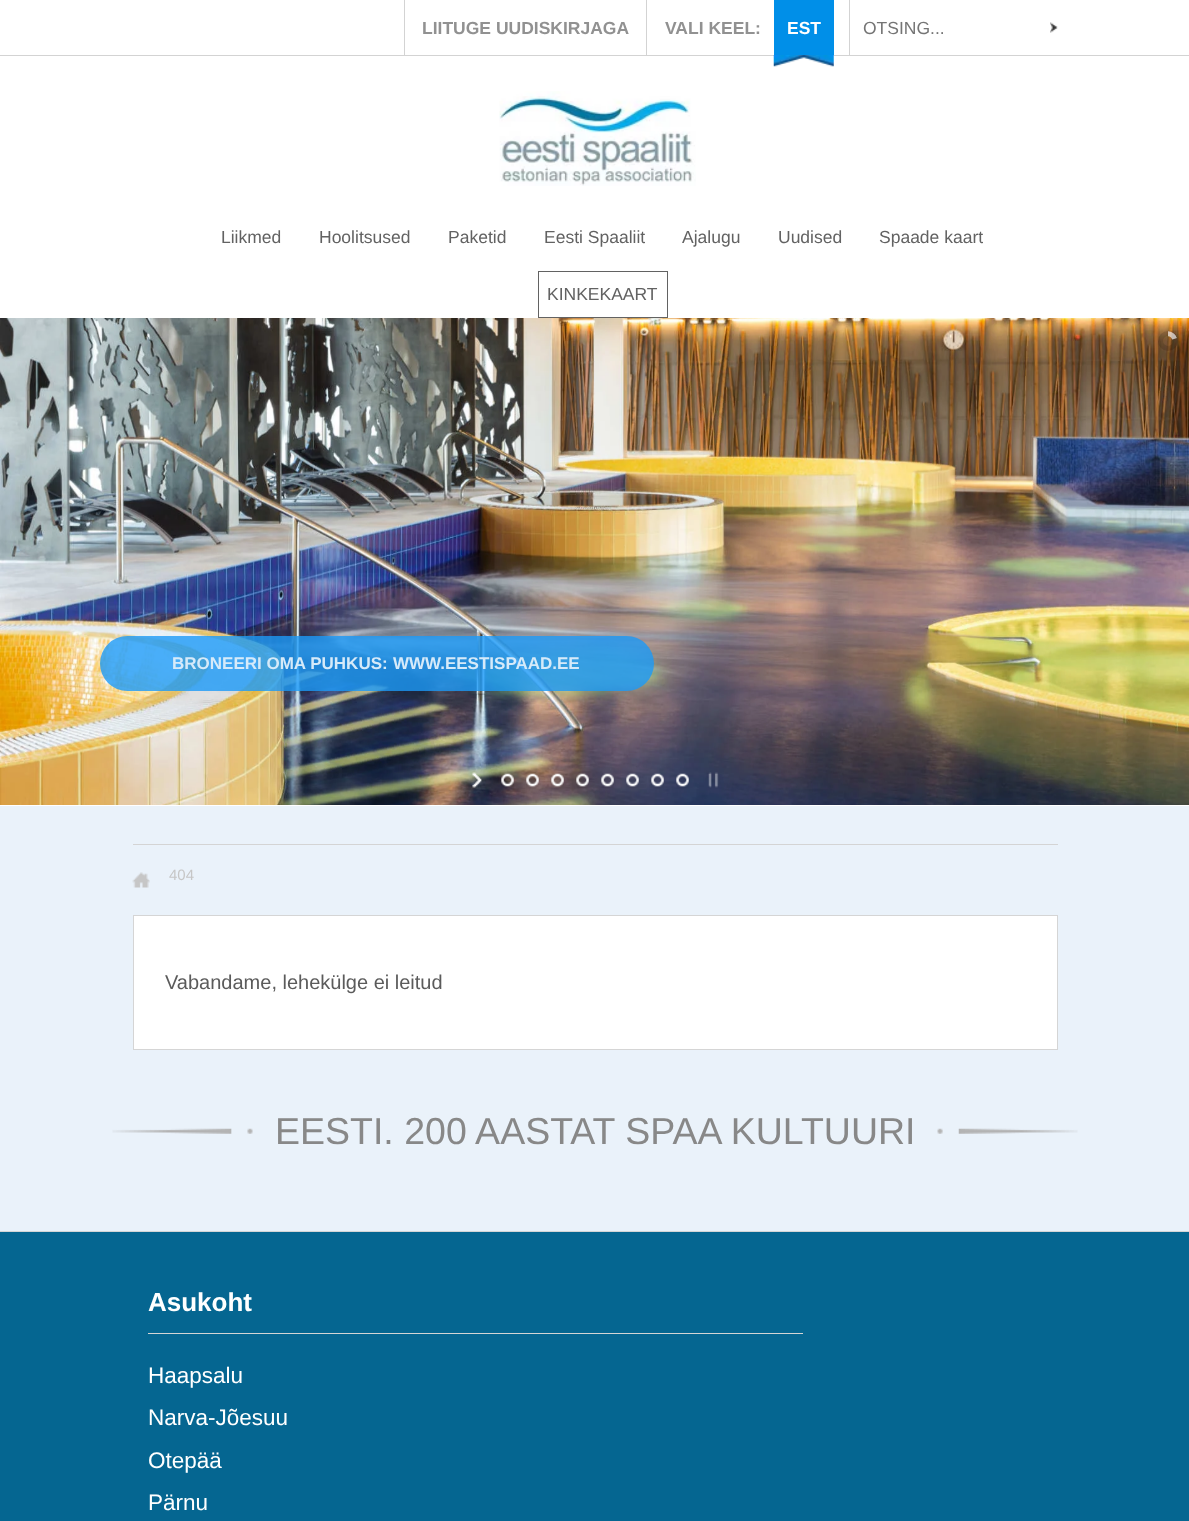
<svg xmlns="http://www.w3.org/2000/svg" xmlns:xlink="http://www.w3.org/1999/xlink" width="1189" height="1521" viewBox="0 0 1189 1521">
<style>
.cls-1{font:bold 17.5px Liberation Sans;fill:#919191}
.cls-2{font:bold 17.5px Liberation Sans;fill:#ffffff}
.cls-3{font:17.5px Liberation Sans;fill:#757575}
.cls-4{font:17.5px Liberation Sans;fill:#626262}
.cls-5{font:bold 17px Liberation Sans;fill:#d6eaf9}
.cls-6{font:15px Liberation Sans;fill:#c6c6c6}
.cls-7{font:20px Liberation Sans;fill:#5b5b5b}
.cls-8{font:37.5px Liberation Sans;fill:#888888}
.cls-9{font:bold 26px Liberation Sans;fill:#ffffff}
.cls-10{font:22.5px Liberation Sans;fill:#ffffff}
</style>
<defs>
<clipPath id="clip1"><rect x="1168" y="331" width="10" height="20"/></clipPath>
<clipPath id="clip2"><path d="M1173.5 328.5L1177 338L1158 344.5L1154.5 335.5Z"/></clipPath>
</defs>
<rect width="100%" height="100%" fill="#eaf2fa"/>
<rect fill="#ffffff" x="0" y="805" width="1189" height="1"/>
<rect fill="#ffffff" x="0" y="0" width="1189" height="55"/>
<rect fill="#d3d3d3" x="0" y="55" width="1189" height="1"/>
<rect fill="#d3d3d3" x="404" y="0" width="1" height="55"/>
<rect fill="#d3d3d3" x="646" y="0" width="1" height="55"/>
<rect fill="#008fe8" x="774" y="0" width="60" height="55"/>
<rect fill="#ffffff" x="0" y="56" width="1189" height="262"/>
<image xlink:href="image0.png" x="773" y="55" width="61" height="12"/>
<rect fill="#d3d3d3" x="849" y="0" width="1" height="55"/>
<image xlink:href="image1.png" x="1050" y="22" width="8" height="11"/>
<image xlink:href="image2.png" x="499" y="91" width="197" height="95"/>
<rect fill="none" stroke="#626262" x="538.5" y="271.5" width="129" height="46"/>
<image xlink:href="image3.png" x="0" y="318" width="1189" height="487"/>
<circle fill="none" stroke="#000000" stroke-opacity="0.13" stroke-width="5" cx="1168" cy="341" r="7.5"/>
<g clip-path="url(#clip1)">
<g clip-path="url(#clip2)">
<path fill="none" stroke="#ffffff" stroke-opacity="0.65" stroke-width="5" d="M1174.5 338.5C1178 348 1164 353 1160.5 344C1157 334.5 1171 329.5 1174.5 338.5Z"/>
</g>
</g>
<rect fill="#1b9af7" fill-opacity="0.8" x="100" y="636" width="554" height="55" rx="27.5"/>
<image xlink:href="image4.png" x="472" y="772" width="10" height="16"/>
<image xlink:href="image5.png" x="501" y="773" width="13" height="14"/>
<image xlink:href="image6.png" x="526" y="773" width="13" height="16"/>
<image xlink:href="image7.png" x="551" y="773" width="13" height="16"/>
<image xlink:href="image8.png" x="576" y="773" width="13" height="15"/>
<image xlink:href="image9.png" x="601" y="773" width="13" height="15"/>
<image xlink:href="image10.png" x="626" y="773" width="13" height="16"/>
<image xlink:href="image11.png" x="651" y="773" width="13" height="16"/>
<image xlink:href="image12.png" x="676" y="773" width="13" height="16"/>
<image xlink:href="image13.png" x="708" y="772" width="11" height="16"/>
<rect fill="#d4d4d4" x="133" y="844" width="925" height="1"/>
<image xlink:href="image14.png" x="132" y="872" width="18" height="16"/>
<rect fill="#ffffff" stroke="#d5d5d5" x="133.5" y="915.5" width="924" height="134"/>
<image xlink:href="image15.png" x="112" y="1128" width="141" height="6"/>
<image xlink:href="image16.png" x="937" y="1128" width="141" height="6"/>
<rect fill="#056691" x="0" y="1232" width="1189" height="289"/>
<rect fill="#d5d5d5" x="0" y="1231" width="1189" height="1"/>
<rect fill="#d5d5d5" x="148" y="1333" width="655" height="1"/>
<text class="cls-1" x="422" y="34">LIITUGE UUDISKIRJAGA</text>
<text class="cls-1" x="665" y="34">VALI KEEL:</text>
<text class="cls-2" x="787" y="34">EST</text>
<text class="cls-3" x="863" y="34">OTSING...</text>
<text class="cls-4" x="221" y="243">Liikmed</text>
<text class="cls-4" x="319" y="243">Hoolitsused</text>
<text class="cls-4" x="448" y="243">Paketid</text>
<text class="cls-4" x="544" y="243">Eesti Spaaliit</text>
<text class="cls-4" x="682" y="243">Ajalugu</text>
<text class="cls-4" x="778" y="243">Uudised</text>
<text class="cls-4" x="879" y="243">Spaade kaart</text>
<text class="cls-4" x="547" y="300">KINKEKAART</text>
<text class="cls-5" x="172" y="669">BRONEERI OMA PUHKUS:</text>
<text class="cls-5" x="393" y="669">WWW.EESTISPAAD.EE</text>
<text class="cls-6" x="169" y="880">404</text>
<text class="cls-7" x="165" y="989">Vabandame, lehekülge ei leitud</text>
<text class="cls-8" x="275" y="1144">EESTI. 200 AASTAT SPAA KULTUURI</text>
<text class="cls-9" x="148" y="1311">Asukoht</text>
<text class="cls-10"><tspan x="148" y="1383">Haapsalu</tspan><tspan x="148" y="1425">Narva-Jõesuu</tspan><tspan x="148" y="1468">Otepää</tspan><tspan x="148" y="1510">Pärnu</tspan></text>
</svg>
